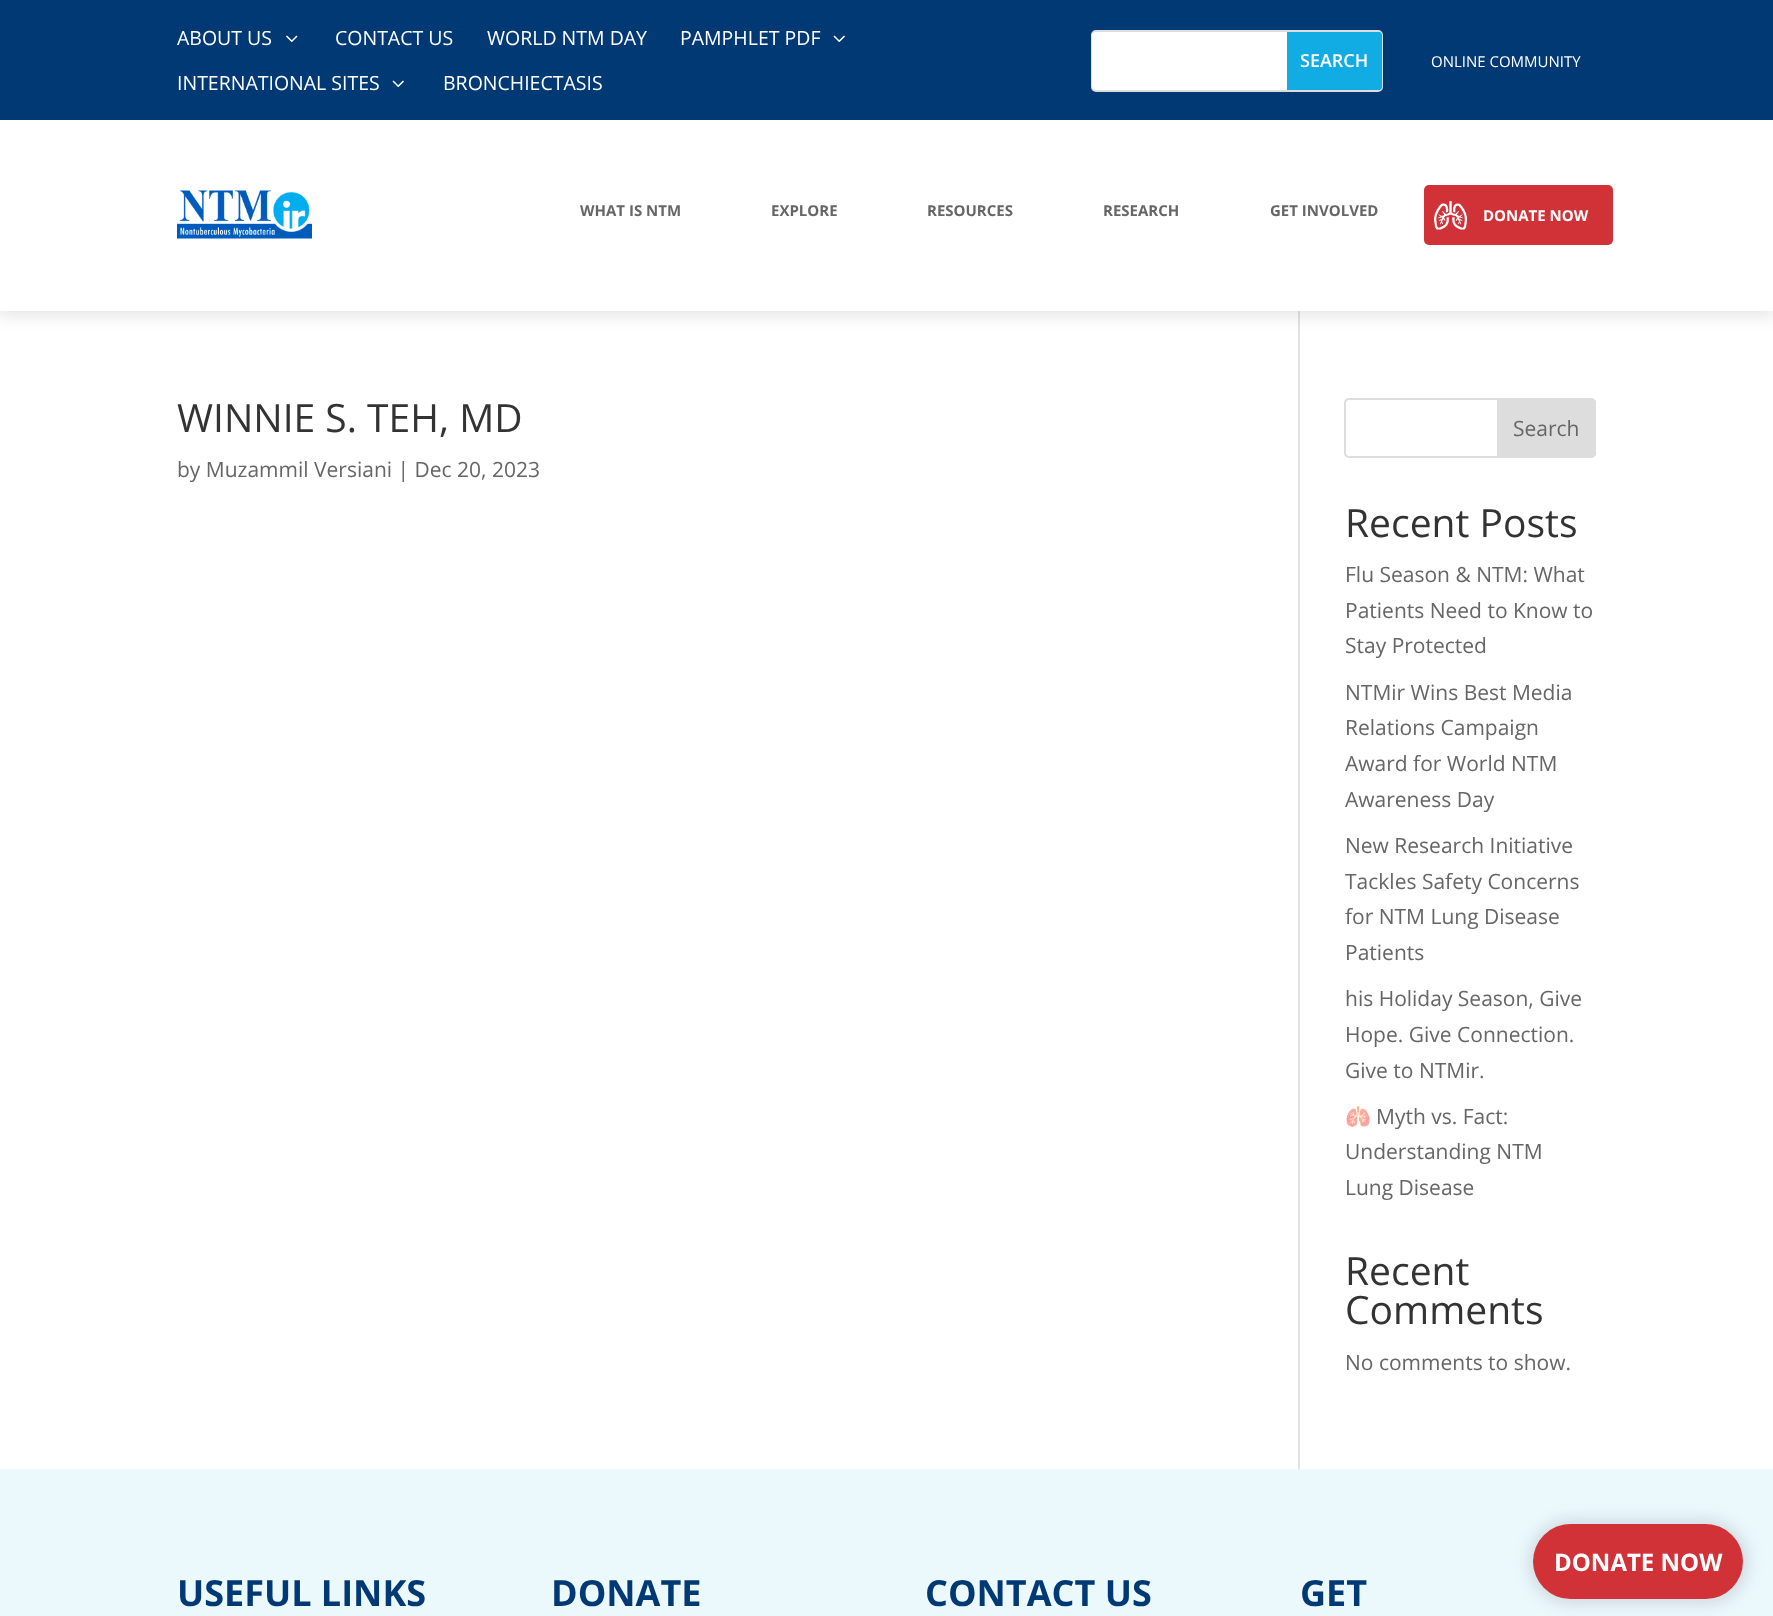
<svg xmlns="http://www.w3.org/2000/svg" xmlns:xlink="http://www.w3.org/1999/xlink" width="1773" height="1616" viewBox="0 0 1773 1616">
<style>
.cls-1{font:19.5px Open Sans;fill:#ffffff}
.cls-2{font:600 18px Open Sans;fill:#ffffff}
.cls-3{font:15px Open Sans;fill:#ffffff}
.cls-4{font:bold 15px Open Sans;fill:#666666}
.cls-5{font:bold 15px Open Sans;fill:#ffffff}
.cls-6{font:39px Open Sans;fill:#333333}
.cls-7{font:21px Open Sans;fill:#666666}
.cls-8{font:21px Noto Color Emoji;fill:#666666}
.cls-9{font:bold 36px Open Sans;fill:#003974}
.cls-10{font:bold 24px Open Sans;fill:#ffffff}
</style>
<rect width="100%" height="100%" fill="#ffffff"/>
<rect fill="#e2e2e2" x="1298" y="311" width="2" height="1158"/>
<rect fill="#000000" fill-opacity="0.09" filter="blur(7.5px)" x="-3" y="120" width="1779" height="197"/>
<rect fill="#003974" x="0" y="0" width="1773" height="120"/>
<image xlink:href="image0.png" x="286" y="35" width="12" height="7"/>
<image xlink:href="image1.png" x="833" y="35" width="12" height="7"/>
<image xlink:href="image1.png" x="392" y="80" width="12" height="7"/>
<rect fill="none" stroke="#dddddd" stroke-width="2" x="1092" y="31" width="290" height="60" rx="4"/>
<path fill="#ffffff" d="M1095 32H1287V90H1095C1093.5 90 1092 88.5 1092 87V35C1092 33.5 1093.5 32 1095 32Z"/>
<path fill="#11ace4" d="M1287 32H1379C1380.5 32 1382 33.5 1382 35V87C1382 88.5 1380.5 90 1379 90H1287Z"/>
<rect fill="#ffffff" x="0" y="120" width="1773" height="191"/>
<image xlink:href="image2.png" x="177" y="190" width="135" height="49"/>
<rect fill="#d03238" x="1424" y="185" width="189" height="60" rx="5"/>
<image xlink:href="image3.png" x="1434" y="201" width="33" height="29"/>
<rect fill="none" stroke="#dddddd" stroke-width="2" x="1345" y="399" width="250" height="58" rx="4"/>
<path fill="#dddddd" stroke="#dddddd" stroke-width="2" d="M1498 399H1591C1593 399 1595 401 1595 403V453C1595 455 1593 457 1591 457H1498Z"/>
<rect fill="#ebf8fc" x="0" y="1469" width="1773" height="147"/>
<rect fill="#64646f" fill-opacity="0.2" filter="blur(8px)" x="1529" y="1520" width="219" height="84" rx="42"/>
<rect fill="#d03238" x="1533" y="1524" width="210" height="75" rx="37.5"/>
<text class="cls-1" x="177" y="45">ABOUT US</text>
<text class="cls-1" x="335" y="45">CONTACT US</text>
<text class="cls-1" x="487" y="45">WORLD NTM DAY</text>
<text class="cls-1" x="680" y="45">PAMPHLET PDF</text>
<text class="cls-1" x="177" y="90">INTERNATIONAL SITES</text>
<text class="cls-1" x="443" y="90">BRONCHIECTASIS</text>
<text class="cls-2" x="1300" y="67">SEARCH</text>
<text class="cls-3" x="1431" y="67">ONLINE COMMUNITY</text>
<text class="cls-4" x="580" y="216">WHAT IS NTM</text>
<text class="cls-4" x="771" y="216">EXPLORE</text>
<text class="cls-4" x="927" y="216">RESOURCES</text>
<text class="cls-4" x="1103" y="216">RESEARCH</text>
<text class="cls-4" x="1270" y="216">GET INVOLVED</text>
<text class="cls-5" x="1483" y="221">DONATE NOW</text>
<text class="cls-6" x="177" y="432">WINNIE S. TEH, MD</text>
<text class="cls-7" x="177" y="477">by Muzammil Versiani | Dec 20, 2023</text>
<text class="cls-7" x="1513" y="436">Search</text>
<text class="cls-6" x="1345" y="537">Recent Posts</text>
<text class="cls-7"><tspan x="1345" y="582">Flu Season &amp; NTM: What</tspan><tspan x="1345" y="618">Patients Need to Know to</tspan><tspan x="1345" y="653">Stay Protected</tspan></text>
<text class="cls-7"><tspan x="1345" y="700">NTMir Wins Best Media</tspan><tspan x="1345" y="735">Relations Campaign</tspan><tspan x="1345" y="771">Award for World NTM</tspan><tspan x="1345" y="807">Awareness Day</tspan></text>
<text class="cls-7"><tspan x="1345" y="853">New Research Initiative</tspan><tspan x="1345" y="889">Tackles Safety Concerns</tspan><tspan x="1345" y="924">for NTM Lung Disease</tspan><tspan x="1345" y="960">Patients</tspan></text>
<text class="cls-7"><tspan x="1345" y="1006">his Holiday Season, Give</tspan><tspan x="1345" y="1042">Hope. Give Connection.</tspan><tspan x="1345" y="1078">Give to NTMir.</tspan></text>
<text class="cls-8" x="1345" y="1124">🫁</text>
<text class="cls-7" x="1376" y="1124">Myth vs. Fact:</text>
<text class="cls-7"><tspan x="1345" y="1159">Understanding NTM</tspan><tspan x="1345" y="1195">Lung Disease</tspan></text>
<text class="cls-6"><tspan x="1345" y="1285">Recent</tspan><tspan x="1345" y="1324">Comments</tspan></text>
<text class="cls-7" x="1345" y="1370">No comments to show.</text>
<text class="cls-9" x="177" y="1606">USEFUL LINKS</text>
<text class="cls-9" x="551" y="1606">DONATE</text>
<text class="cls-9" x="925" y="1606">CONTACT US</text>
<text class="cls-9" x="1300" y="1606">GET</text>
<text class="cls-10" x="1554" y="1571">DONATE NOW</text>
</svg>
